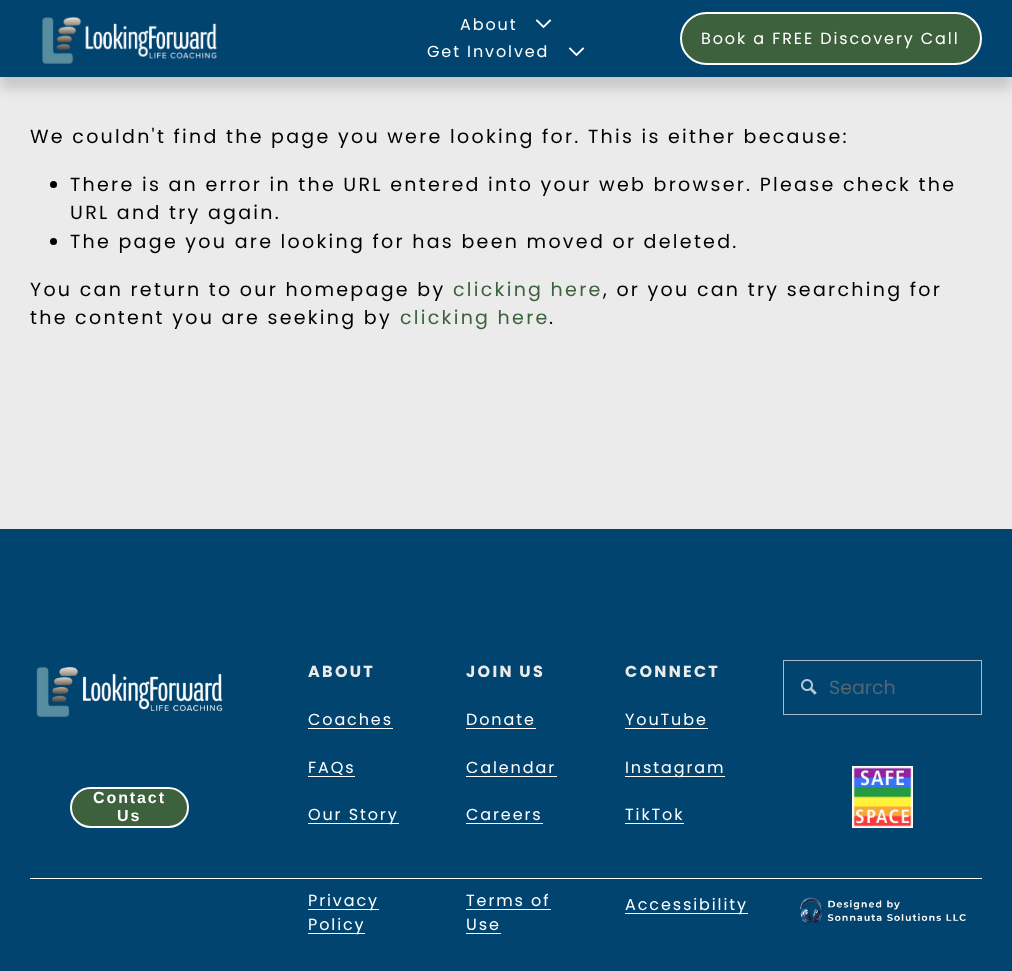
<svg xmlns="http://www.w3.org/2000/svg" xmlns:xlink="http://www.w3.org/1999/xlink" width="1012" height="971" viewBox="0 0 1012 971">
<style>
.cls-1{font:16px Poppins;letter-spacing:1.9px;fill:#ffffff}
.cls-2{font:19.05px Poppins;letter-spacing:2.28px;fill:#000000}
.cls-3{font:19.05px Poppins;letter-spacing:2.28px;fill:#3d613d}
.cls-4{font:bold 16px Poppins;letter-spacing:2.28px;fill:#ebebeb}
.cls-5{font:19.05px Poppins;fill:#526674}
.cls-6{font:bold 16px Liberation Sans;letter-spacing:1.9px;fill:#ffffff}
</style>
<defs>
<clipPath id="clip1"><rect x="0" y="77" width="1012" height="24"/></clipPath>
</defs>
<rect width="100%" height="100%" fill="#ebebeb"/>
<rect fill="#014470" x="0" y="0" width="1012" height="77"/>
<g clip-path="url(#clip1)">
<rect fill="#c8c8c8" filter="blur(6px)" x="0" y="12" width="1012" height="77"/>
</g>
<image xlink:href="image0.png" x="42" y="16" width="175" height="48"/>
<path fill="none" stroke="#ffffff" stroke-width="1.9" stroke-linecap="square" d="M550 20.5L543.5 27L537 20.5"/>
<path fill="none" stroke="#ffffff" stroke-width="1.9" stroke-linecap="square" d="M583 48.5L576.5 55L570 48.5"/>
<rect fill="#3d613d" stroke="#ffffff" stroke-width="2" x="681" y="13" width="300" height="51" rx="25.5"/>
<circle fill="#000000" cx="53.5" cy="184.5" r="3.5"/>
<circle fill="#000000" cx="53.5" cy="241.5" r="3.5"/>
<rect fill="#014470" x="0" y="529" width="1012" height="442"/>
<image xlink:href="image1.png" x="36" y="667" width="187" height="50"/>
<image xlink:href="image2.png" x="801" y="679" width="16" height="16"/>
<rect fill="none" stroke="#a7bbc8" x="783.5" y="660.5" width="198" height="54"/>
<rect fill="#3d613d" stroke="#ffffff" stroke-width="2" x="71" y="788" width="117" height="39" rx="19.5"/>
<rect fill="#ffffff" x="308" y="728" width="85" height="1"/>
<rect fill="#ffffff" x="308" y="776" width="47" height="1"/>
<rect fill="#ffffff" x="308" y="823" width="91" height="1"/>
<rect fill="#ffffff" x="466" y="728" width="70" height="1"/>
<rect fill="#ffffff" x="466" y="776" width="91" height="1"/>
<rect fill="#ffffff" x="466" y="823" width="77" height="1"/>
<rect fill="#ffffff" x="625" y="728" width="83" height="1"/>
<rect fill="#ffffff" x="625" y="776" width="100" height="1"/>
<rect fill="#ffffff" x="625" y="823" width="59" height="1"/>
<image xlink:href="image3.png" x="852" y="766" width="61" height="62"/>
<rect fill="#ffffff" x="30" y="878" width="952" height="1"/>
<rect fill="#ffffff" x="308" y="909" width="71" height="1"/>
<rect fill="#ffffff" x="308" y="933" width="57" height="1"/>
<rect fill="#ffffff" x="466" y="909" width="85" height="1"/>
<rect fill="#ffffff" x="466" y="933" width="35" height="1"/>
<rect fill="#ffffff" x="625" y="913" width="123" height="1"/>
<image xlink:href="image4.png" x="800" y="897" width="166" height="26"/>
<text class="cls-1" x="460" y="30">About</text>
<text class="cls-1" x="427" y="57">Get Involved</text>
<text class="cls-1" x="701" y="44">Book a FREE Discovery Call</text>
<text class="cls-2" x="30" y="143">We couldn't find the page you were looking for. This is either because:</text>
<text class="cls-2"><tspan x="70" y="191">There is an error in the URL entered into your web browser. Please check the</tspan><tspan x="70" y="219">URL and try again.</tspan><tspan x="70" y="248">The page you are looking for has been moved or deleted.</tspan></text>
<text class="cls-2" x="30" y="296">You can return to our homepage by</text>
<text class="cls-3" x="453" y="296">clicking here</text>
<text class="cls-2" x="603" y="296">, or you can try searching for</text>
<text class="cls-2" x="30" y="324">the content you are seeking by</text>
<text class="cls-3" x="400" y="324">clicking here</text>
<text class="cls-2" x="549" y="324">.</text>
<text class="cls-4" x="308" y="677">ABOUT</text>
<text class="cls-4" x="466" y="677">JOIN US</text>
<text class="cls-4" x="625" y="677">CONNECT</text>
<text class="cls-5" x="829" y="694">Search</text>
<text class="cls-6" x="93" y="803">Contact</text>
<text class="cls-6" x="117" y="821">Us</text>
<text class="cls-1" x="308" y="725">Coaches</text>
<text class="cls-1" x="308" y="773">FAQs</text>
<text class="cls-1" x="308" y="820">Our Story</text>
<text class="cls-1" x="466" y="725">Donate</text>
<text class="cls-1" x="466" y="773">Calendar</text>
<text class="cls-1" x="466" y="820">Careers</text>
<text class="cls-1" x="625" y="725">YouTube</text>
<text class="cls-1" x="625" y="773">Instagram</text>
<text class="cls-1" x="625" y="820">TikTok</text>
<text class="cls-1"><tspan x="308" y="906">Privacy</tspan><tspan x="308" y="930">Policy</tspan></text>
<text class="cls-1"><tspan x="466" y="906">Terms of</tspan><tspan x="466" y="930">Use</tspan></text>
<text class="cls-1" x="625" y="910">Accessibility</text>
</svg>
